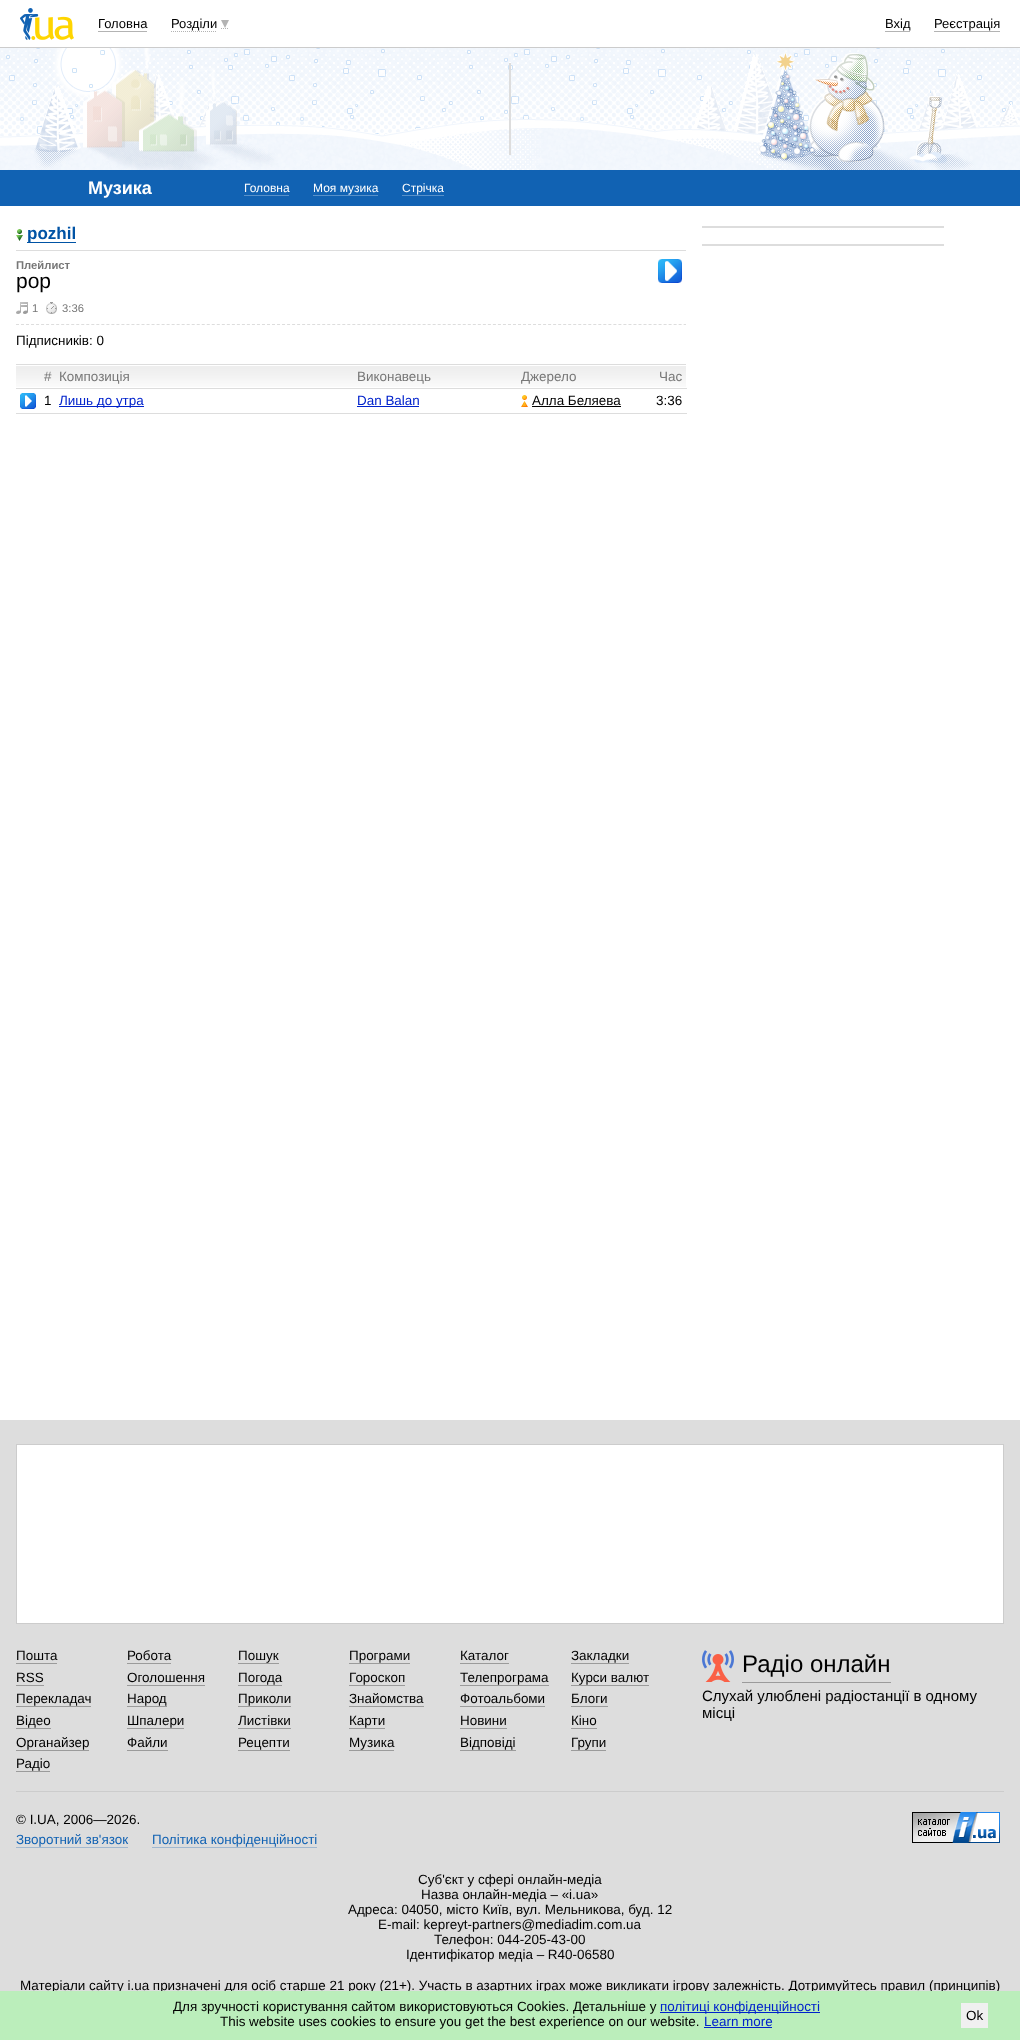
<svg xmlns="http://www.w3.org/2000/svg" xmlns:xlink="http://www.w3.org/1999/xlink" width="1020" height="2040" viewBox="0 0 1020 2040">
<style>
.cls-1{font:13px Liberation Sans;fill:#000000}
.cls-2{font:bold 18px Liberation Sans;fill:#ffffff}
.cls-3{font:12px Liberation Sans;fill:#ffffff}
.cls-4{font:bold 17px Liberation Sans;fill:#0053a5}
.cls-5{font:bold 11.25px Liberation Sans;fill:#777777}
.cls-6{font:21px Liberation Sans;fill:#000000}
.cls-7{font:11.25px Liberation Sans;fill:#777777}
.cls-8{font:13.45px Liberation Sans;fill:#000000}
.cls-9{font:13.45px Liberation Sans;fill:#777777}
.cls-10{font:13.45px Liberation Sans;fill:#0022cc}
.cls-11{font:24px Liberation Sans;fill:#000000}
.cls-12{font:15px Liberation Sans;fill:#000000}
.cls-13{font:13.45px Liberation Sans;fill:#1162b3}
</style>
<rect width="100%" height="100%" fill="#ffffff"/>
<rect fill="#cccccc" x="0" y="47" width="1020" height="1"/>
<image xlink:href="image0.png" x="20" y="8" width="54" height="32"/>
<rect fill="#b3b3b3" x="98" y="31" width="49" height="1"/>
<path fill="none" stroke="#b3b3b3" stroke-dasharray="1 1" d="M171 31.5H217M221 28.5H229"/>
<path fill="#b3b3b3" d="M221 20H229L225 28Z"/>
<rect fill="#b3b3b3" x="885" y="31" width="25" height="1"/>
<rect fill="#b3b3b3" x="934" y="31" width="66" height="1"/>
<image xlink:href="image1.png" x="0" y="48" width="1020" height="122"/>
<rect fill="#dddddd" x="509" y="63" width="2" height="92"/>
<rect fill="#1162b3" x="0" y="170" width="1020" height="36"/>
<rect fill="#5891ca" x="244" y="195" width="45" height="1"/>
<rect fill="#5891ca" x="313" y="195" width="65" height="1"/>
<rect fill="#5891ca" x="402" y="195" width="42" height="1"/>
<rect fill="#dddddd" x="16" y="250" width="670" height="1"/>
<rect fill="#0053a5" x="27" y="242" width="49" height="1"/>
<image xlink:href="image2.png" x="16" y="229" width="7" height="12"/>
<image xlink:href="image3.png" x="658" y="259" width="24" height="24"/>
<image xlink:href="image4.png" x="16" y="302" width="12" height="12"/>
<image xlink:href="image5.png" x="46" y="302" width="11" height="12"/>
<path fill="none" stroke="#dddddd" stroke-dasharray="3 2.02" d="M16 324.5H686"/>
<rect fill="#dddddd" x="16" y="364" width="670" height="1"/>
<rect fill="#dddddd" x="16" y="413" width="671" height="1"/>
<image xlink:href="image6.png" x="16" y="366" width="24" height="21"/>
<image xlink:href="image7.png" x="40" y="366" width="15" height="21"/>
<image xlink:href="image8.png" x="55" y="366" width="298" height="21"/>
<image xlink:href="image9.png" x="353" y="366" width="164" height="21"/>
<image xlink:href="image10.png" x="517" y="366" width="135" height="21"/>
<image xlink:href="image11.png" x="652" y="366" width="34" height="21"/>
<rect fill="#dddddd" x="16" y="388" width="671" height="1"/>
<image xlink:href="image12.png" x="20" y="393" width="16" height="16"/>
<rect fill="#0022cc" x="59" y="406" width="85" height="1"/>
<rect fill="#0022cc" x="357" y="406" width="62" height="1"/>
<image xlink:href="image13.png" x="521" y="395" width="7" height="12"/>
<rect fill="#000000" x="532" y="406" width="89" height="1"/>
<rect fill="#dddddd" x="702" y="226" width="242" height="2"/>
<rect fill="#dddddd" x="702" y="244" width="242" height="2"/>
<rect fill="#dddddd" x="0" y="1420" width="1020" height="571"/>
<rect fill="#ffffff" stroke="#cccccc" x="16.5" y="1444.5" width="987" height="179"/>
<rect fill="#9b9b9b" x="16" y="1663" width="41" height="1"/>
<rect fill="#9b9b9b" x="127" y="1663" width="44" height="1"/>
<rect fill="#9b9b9b" x="238" y="1663" width="41" height="1"/>
<rect fill="#9b9b9b" x="349" y="1663" width="61" height="1"/>
<rect fill="#9b9b9b" x="460" y="1663" width="49" height="1"/>
<rect fill="#9b9b9b" x="571" y="1663" width="58" height="1"/>
<rect fill="#9b9b9b" x="16" y="1685" width="28" height="1"/>
<rect fill="#9b9b9b" x="127" y="1685" width="78" height="1"/>
<rect fill="#9b9b9b" x="238" y="1685" width="44" height="1"/>
<rect fill="#9b9b9b" x="349" y="1685" width="56" height="1"/>
<rect fill="#9b9b9b" x="460" y="1685" width="89" height="1"/>
<rect fill="#9b9b9b" x="571" y="1685" width="78" height="1"/>
<rect fill="#9b9b9b" x="16" y="1706" width="75" height="1"/>
<rect fill="#9b9b9b" x="127" y="1706" width="40" height="1"/>
<rect fill="#9b9b9b" x="238" y="1706" width="53" height="1"/>
<rect fill="#9b9b9b" x="349" y="1706" width="75" height="1"/>
<rect fill="#9b9b9b" x="460" y="1706" width="85" height="1"/>
<rect fill="#9b9b9b" x="571" y="1706" width="37" height="1"/>
<rect fill="#9b9b9b" x="16" y="1728" width="35" height="1"/>
<rect fill="#9b9b9b" x="127" y="1728" width="57" height="1"/>
<rect fill="#9b9b9b" x="238" y="1728" width="53" height="1"/>
<rect fill="#9b9b9b" x="349" y="1728" width="36" height="1"/>
<rect fill="#9b9b9b" x="460" y="1728" width="47" height="1"/>
<rect fill="#9b9b9b" x="571" y="1728" width="26" height="1"/>
<rect fill="#9b9b9b" x="16" y="1750" width="73" height="1"/>
<rect fill="#9b9b9b" x="127" y="1750" width="41" height="1"/>
<rect fill="#9b9b9b" x="238" y="1750" width="52" height="1"/>
<rect fill="#9b9b9b" x="349" y="1750" width="45" height="1"/>
<rect fill="#9b9b9b" x="460" y="1750" width="56" height="1"/>
<rect fill="#9b9b9b" x="571" y="1750" width="35" height="1"/>
<rect fill="#9b9b9b" x="16" y="1771" width="34" height="1"/>
<rect fill="#9b9b9b" x="742" y="1682" width="149" height="1"/>
<image xlink:href="image14.png" x="702" y="1650" width="32" height="32"/>
<rect fill="#cccccc" x="16" y="1791" width="988" height="1"/>
<image xlink:href="image15.png" x="912" y="1812" width="88" height="31"/>
<rect fill="#a0b8d0" x="16" y="1847" width="112" height="1"/>
<rect fill="#a0b8d0" x="152" y="1847" width="165" height="1"/>
<text class="cls-1" x="98" y="28">Головна</text>
<text class="cls-1" x="171" y="28">Розділи</text>
<text class="cls-1" x="885" y="28">Вхід</text>
<text class="cls-1" x="934" y="28">Реєстрація</text>
<text class="cls-2" x="88" y="194">Музика</text>
<text class="cls-3" x="244" y="192">Головна</text>
<text class="cls-3" x="313" y="192">Моя музика</text>
<text class="cls-3" x="402" y="192">Стрічка</text>
<text class="cls-4" x="27" y="239">pozhil</text>
<text class="cls-5" x="16" y="269">Плейлист</text>
<text class="cls-6" x="16" y="288">pop</text>
<text class="cls-7" x="32" y="312">1</text>
<text class="cls-7" x="62" y="312">3:36</text>
<text class="cls-8" x="16" y="345">Підписників: 0</text>
<text class="cls-9" x="44" y="381">#</text>
<text class="cls-9" x="59" y="381">Композиція</text>
<text class="cls-9" x="357" y="381">Виконавець</text>
<text class="cls-9" x="521" y="381">Джерело</text>
<text class="cls-9" x="659" y="381">Час</text>
<text class="cls-8" x="44" y="405">1</text>
<text class="cls-10" x="59" y="405">Лишь до утра</text>
<text class="cls-10" x="357" y="405">Dan Balan</text>
<text class="cls-8" x="532" y="405">Алла Беляева</text>
<text class="cls-8" x="656" y="405">3:36</text>
<text class="cls-8" x="16" y="1660">Пошта</text>
<text class="cls-8" x="127" y="1660">Робота</text>
<text class="cls-8" x="238" y="1660">Пошук</text>
<text class="cls-8" x="349" y="1660">Програми</text>
<text class="cls-8" x="460" y="1660">Каталог</text>
<text class="cls-8" x="571" y="1660">Закладки</text>
<text class="cls-8" x="16" y="1682">RSS</text>
<text class="cls-8" x="127" y="1682">Оголошення</text>
<text class="cls-8" x="238" y="1682">Погода</text>
<text class="cls-8" x="349" y="1682">Гороскоп</text>
<text class="cls-8" x="460" y="1682">Телепрограма</text>
<text class="cls-8" x="571" y="1682">Курси валют</text>
<text class="cls-8" x="16" y="1703">Перекладач</text>
<text class="cls-8" x="127" y="1703">Народ</text>
<text class="cls-8" x="238" y="1703">Приколи</text>
<text class="cls-8" x="349" y="1703">Знайомства</text>
<text class="cls-8" x="460" y="1703">Фотоальбоми</text>
<text class="cls-8" x="571" y="1703">Блоги</text>
<text class="cls-8" x="16" y="1725">Відео</text>
<text class="cls-8" x="127" y="1725">Шпалери</text>
<text class="cls-8" x="238" y="1725">Листівки</text>
<text class="cls-8" x="349" y="1725">Карти</text>
<text class="cls-8" x="460" y="1725">Новини</text>
<text class="cls-8" x="571" y="1725">Кіно</text>
<text class="cls-8" x="16" y="1747">Органайзер</text>
<text class="cls-8" x="127" y="1747">Файли</text>
<text class="cls-8" x="238" y="1747">Рецепти</text>
<text class="cls-8" x="349" y="1747">Музика</text>
<text class="cls-8" x="460" y="1747">Відповіді</text>
<text class="cls-8" x="571" y="1747">Групи</text>
<text class="cls-8" x="16" y="1768">Радіо</text>
<text class="cls-11" x="742" y="1672">Радіо онлайн</text>
<text class="cls-12"><tspan x="702" y="1701">Слухай улюблені радіостанції в одному</tspan><tspan x="702" y="1718">місці</tspan></text>
<text class="cls-8" x="16" y="1824">© I.UA, 2006—2026.</text>
<text class="cls-13" x="16" y="1844">Зворотний зв'язок</text>
<text class="cls-13" x="152" y="1844">Політика конфіденційності</text>
<text class="cls-8" x="418" y="1884">Суб'єкт у сфері онлайн-медіа</text>
<text class="cls-8" x="421" y="1899">Назва онлайн-медіа – «i.ua»</text>
<text class="cls-8" x="348" y="1914">Адреса: 04050, місто Київ, вул. Мельникова, буд. 12</text>
<text class="cls-8" x="378" y="1929">E-mail: kepreyt-partners@mediadim.com.ua</text>
<text class="cls-8" x="434" y="1944">Телефон: 044-205-43-00</text>
<text class="cls-8" x="406" y="1959">Ідентифікатор медіа – R40-06580</text>
<text class="cls-8" x="20" y="1990">Матеріали сайту i.ua призначені для осіб старше 21 року (21+). Участь в азартних іграх може викликати ігрову залежність. Дотримуйтесь правил (принципів)</text>
<rect fill="#bbeebb" x="0" y="1991" width="1020" height="49"/>
<text class="cls-8" x="173" y="2011">Для зручності користування сайтом використовуються Cookies. Детальніше у</text>
<rect fill="#0022cc" x="660" y="2012" width="160" height="1"/>
<text class="cls-10" x="660" y="2011">політиці конфіденційності</text>
<text class="cls-8" x="220" y="2026">This website uses cookies to ensure you get the best experience on our website.</text>
<text class="cls-10" x="704" y="2026">Learn more</text>
<rect fill="#0022cc" x="704" y="2027" width="68" height="1"/>
<rect fill="#f0f0f0" x="961" y="2003" width="27" height="25"/>
<text class="cls-8" x="966" y="2020">Ok</text>
</svg>
